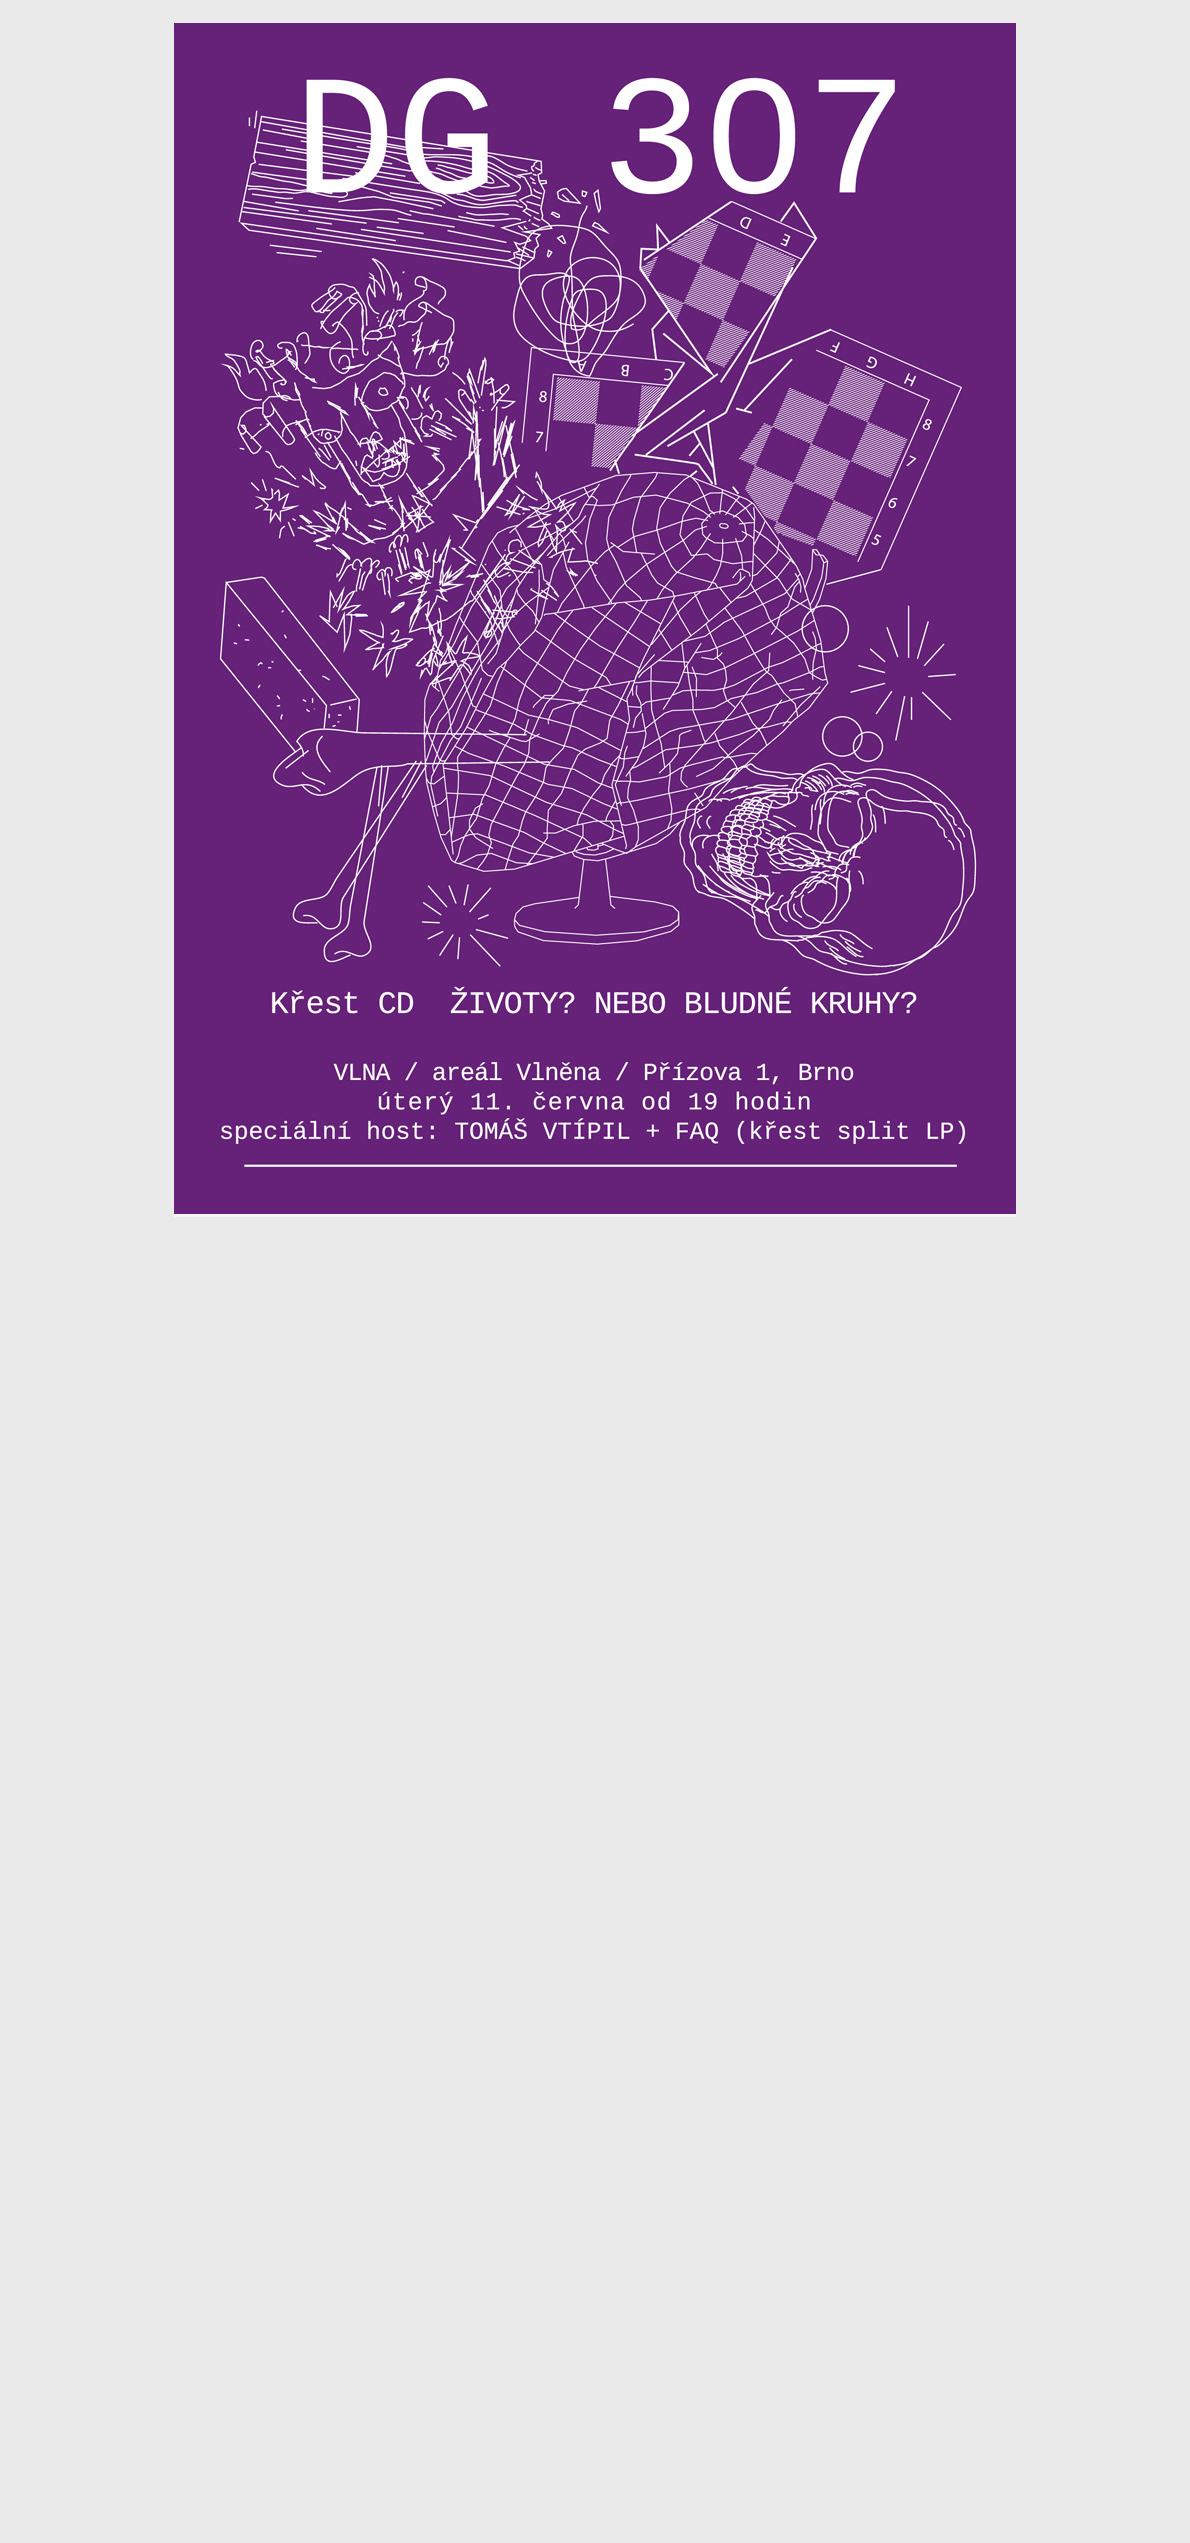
<svg xmlns="http://www.w3.org/2000/svg" xmlns:xlink="http://www.w3.org/1999/xlink" width="1190" height="2543" viewBox="0 0 1190 2543">
<rect width="100%" height="100%" fill="#eaeaea"/>
<image xlink:href="image0.png" x="174" y="23" width="842" height="1191"/>
<rect fill="#f5f5f5" x="174" y="1214" width="842" height="3"/>
</svg>
